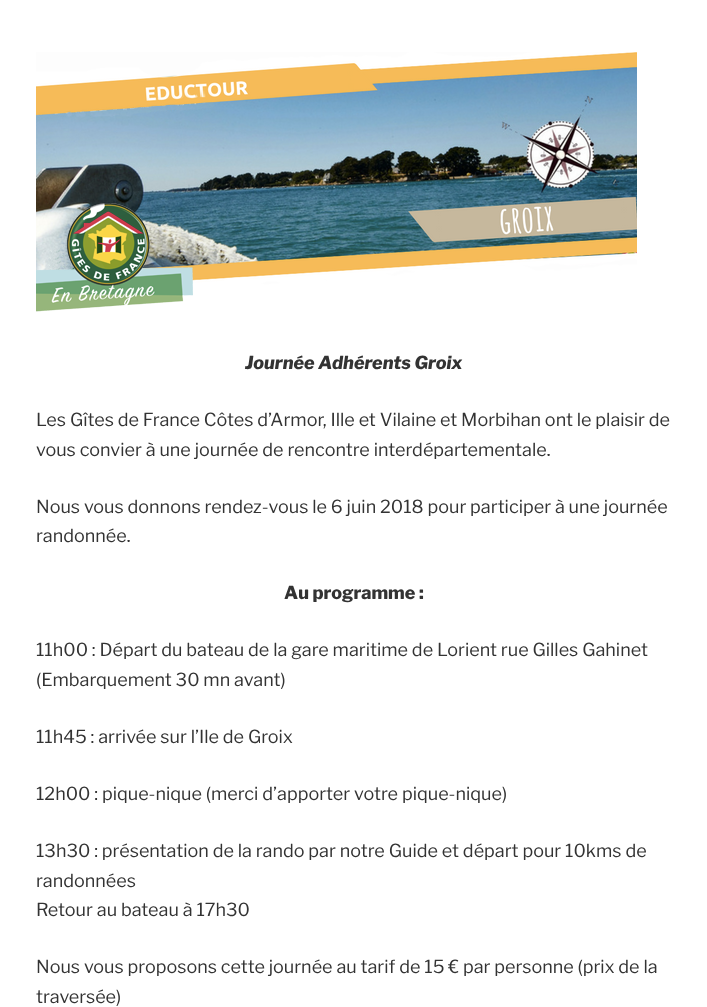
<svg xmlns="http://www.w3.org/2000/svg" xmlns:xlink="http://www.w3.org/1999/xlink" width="707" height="1007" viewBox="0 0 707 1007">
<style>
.cls-1{font:italic 800 18px Libre Franklin;fill:#333333}
.cls-2{font:18px Libre Franklin;fill:#333333}
.cls-3{font:800 18px Libre Franklin;fill:#333333}
</style>
<rect width="100%" height="100%" fill="#ffffff"/>
<image xlink:href="image0.png" x="36" y="52" width="601" height="260"/>
<text class="cls-1" x="245" y="369">Journée Adhérents Groix</text>
<text class="cls-2"><tspan x="36" y="426">Les Gîtes de France Côtes d’Armor, Ille et Vilaine et Morbihan ont le plaisir de</tspan><tspan x="36" y="456">vous convier à une journée de rencontre interdépartementale.</tspan></text>
<text class="cls-2"><tspan x="36" y="513">Nous vous donnons rendez-vous le 6 juin 2018 pour participer à une journée</tspan><tspan x="36" y="542">randonnée.</tspan></text>
<text class="cls-3" x="284" y="599">Au programme :</text>
<text class="cls-2"><tspan x="36" y="656">11h00 : Départ du bateau de la gare maritime de Lorient rue Gilles Gahinet</tspan><tspan x="36" y="686">(Embarquement 30 mn avant)</tspan></text>
<text class="cls-2" x="36" y="743">11h45 : arrivée sur l’Ile de Groix</text>
<text class="cls-2" x="36" y="800">12h00 : pique-nique (merci d’apporter votre pique-nique)</text>
<text class="cls-2"><tspan x="36" y="857">13h30 : présentation de la rando par notre Guide et départ pour 10kms de</tspan><tspan x="36" y="887">randonnées</tspan><tspan x="36" y="916">Retour au bateau à 17h30</tspan></text>
<text class="cls-2"><tspan x="36" y="973">Nous vous proposons cette journée au tarif de 15 € par personne (prix de la</tspan><tspan x="36" y="1003">traversée)</tspan></text>
</svg>
